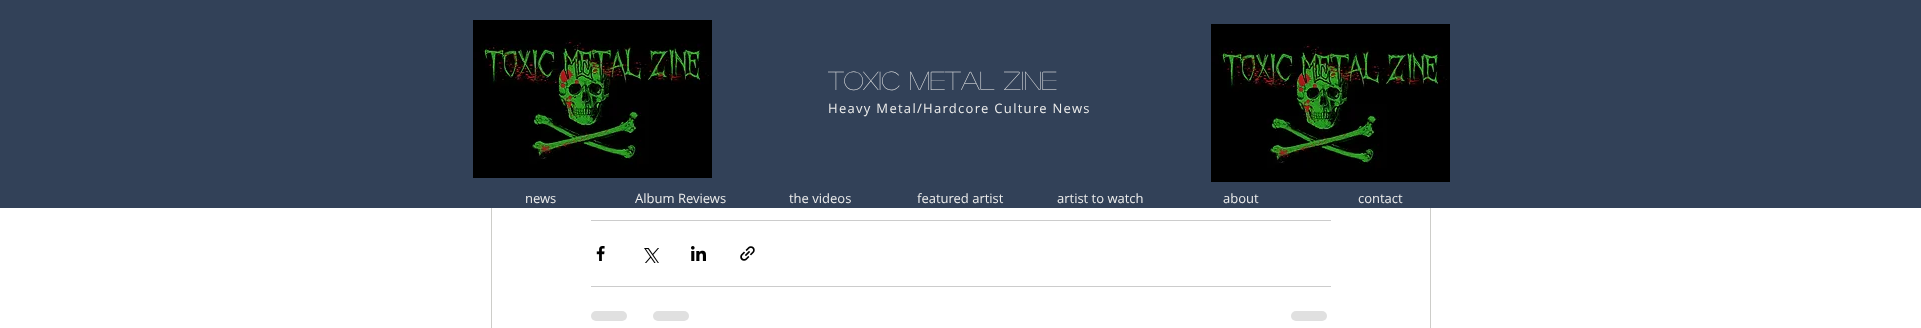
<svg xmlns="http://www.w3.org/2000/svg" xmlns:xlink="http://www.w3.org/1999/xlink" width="1921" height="328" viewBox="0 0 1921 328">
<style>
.cls-1{font:26px 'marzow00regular';fill:#ededec}
.cls-2{font:13px Open Sans;letter-spacing:1.3px;fill:#ededec}
.cls-3{font:13px Open Sans;fill:#ededec}
</style>
<rect width="100%" height="100%" fill="#ffffff"/>
<rect fill="none" stroke="#cdcdc9" x="491.5" y="-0.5" width="939" height="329"/>
<rect fill="#cccccc" x="591" y="220" width="740" height="1"/>
<image xlink:href="image0.png" x="596" y="246" width="9" height="15"/>
<image xlink:href="image1.png" x="644" y="248" width="15" height="15"/>
<image xlink:href="image2.png" x="691" y="246" width="15" height="15"/>
<image xlink:href="image3.png" x="740" y="246" width="15" height="15"/>
<rect fill="#cccccc" x="591" y="286" width="740" height="1"/>
<rect fill="#e0e0e0" x="591" y="311" width="36" height="10" rx="5"/>
<rect fill="#e0e0e0" x="653" y="311" width="36" height="10" rx="5"/>
<rect fill="#e0e0e0" x="1291" y="311" width="36" height="10" rx="5"/>
<rect fill="#324158" x="0" y="0" width="1921" height="208"/>
<image xlink:href="image4.png" x="473" y="20" width="239" height="158"/>
<image xlink:href="image4.png" x="1211" y="24" width="239" height="158"/>
<text class="cls-1" x="828" y="90">Toxic Metal Zine</text>
<text class="cls-2" x="828" y="113">Heavy Metal/Hardcore Culture News</text>
<text class="cls-3" x="525" y="203">news</text>
<text class="cls-3" x="635" y="203">Album Reviews</text>
<text class="cls-3" x="789" y="203">the videos</text>
<text class="cls-3" x="917" y="203">featured artist</text>
<text class="cls-3" x="1057" y="203">artist to watch</text>
<text class="cls-3" x="1223" y="203">about</text>
<text class="cls-3" x="1358" y="203">contact</text>
</svg>
